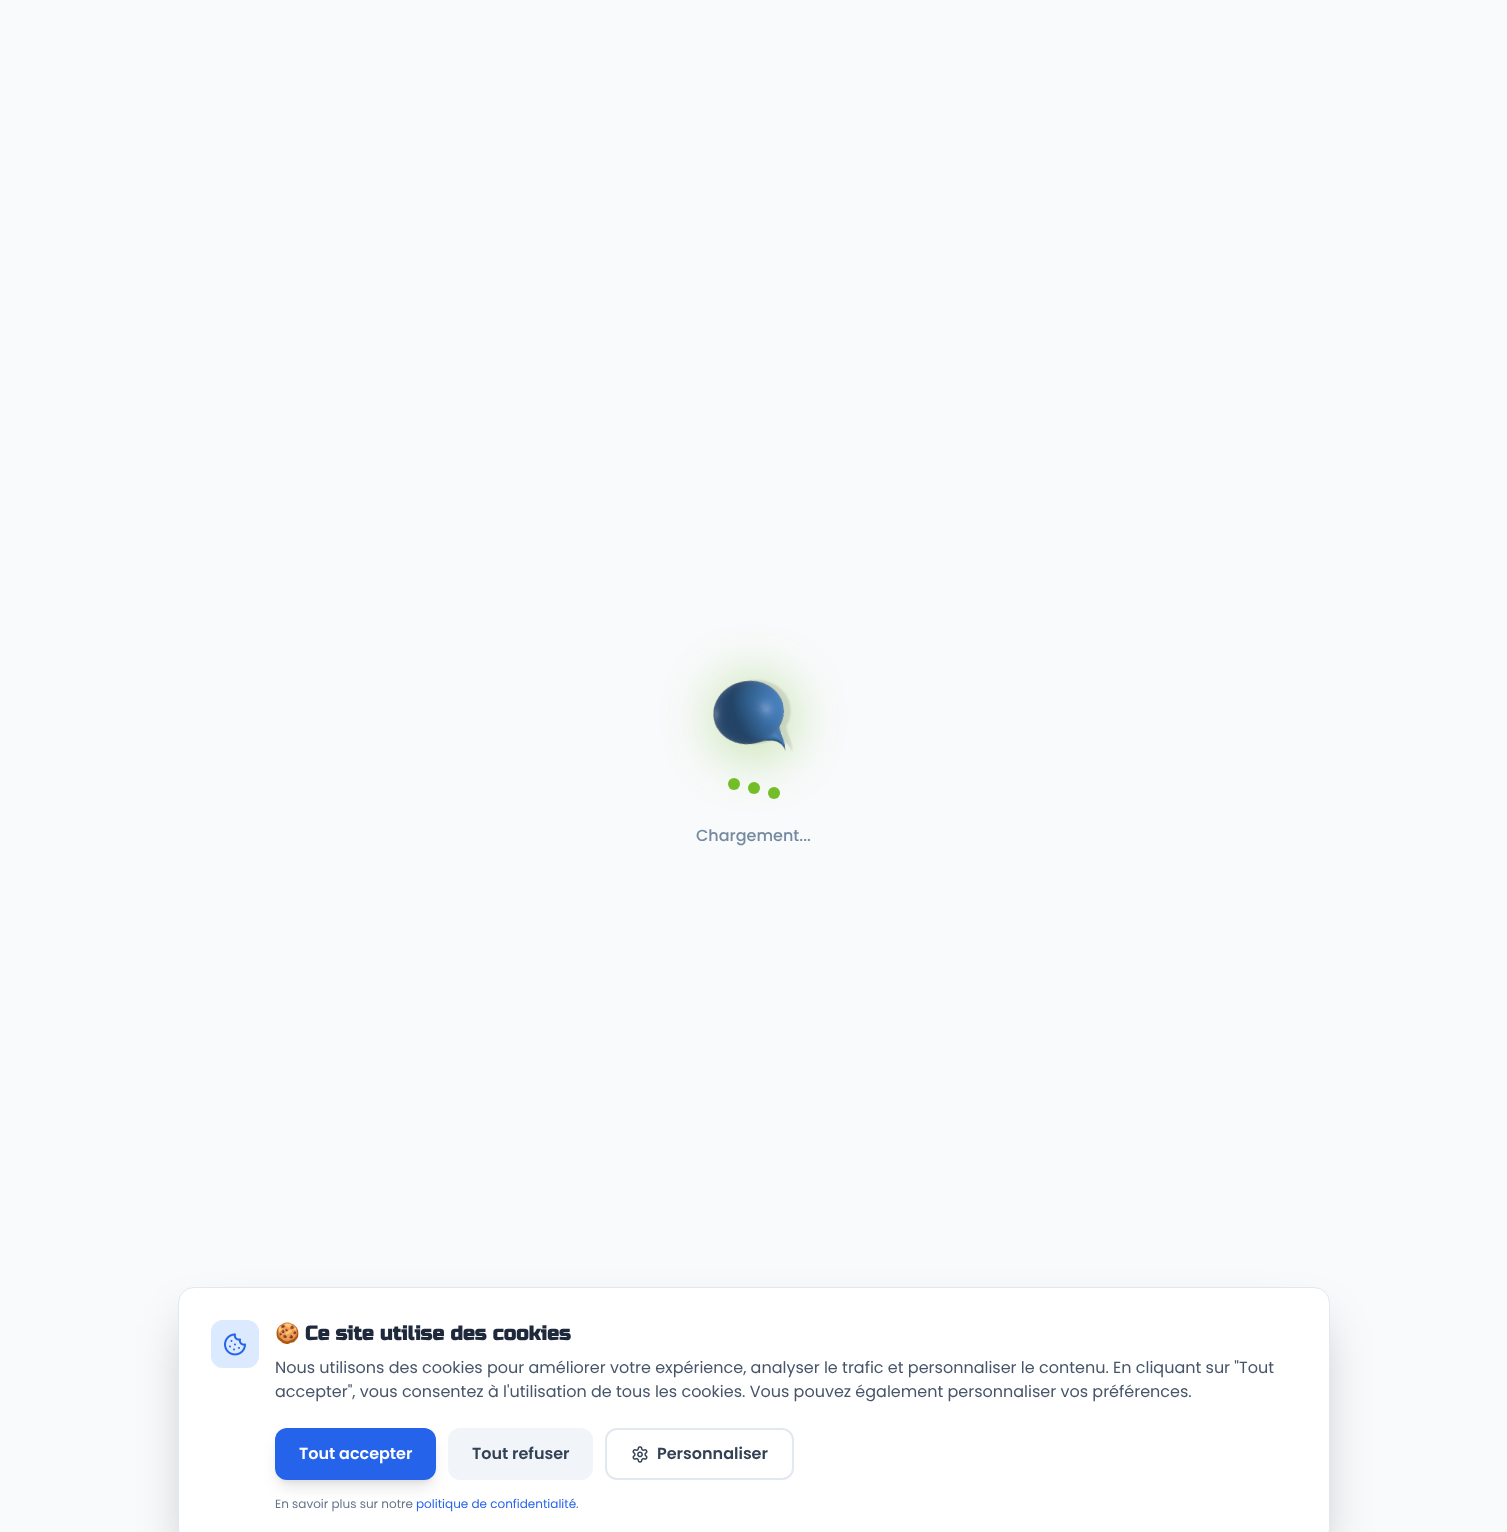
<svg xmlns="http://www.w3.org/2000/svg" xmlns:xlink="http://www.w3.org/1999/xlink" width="1507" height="1532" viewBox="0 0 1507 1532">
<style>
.cls-1{font:500 16px Poppins;fill:#758aa0}
.cls-2{font:bold 20px Noto Color Emoji;fill:#1e293b}
.cls-3{font:bold 20px Russo One;fill:#1e293b}
.cls-4{font:16px Poppins;fill:#475569}
.cls-5{font:600 16px Poppins;fill:#ffffff}
.cls-6{font:600 16px Poppins;fill:#334155}
.cls-7{font:12px Poppins;fill:#64748b}
.cls-8{font:12px Poppins;fill:#2563eb}
</style>
<rect width="100%" height="100%" fill="#f8fafb"/>
<rect fill="#73bd28" fill-opacity="0.3" filter="blur(24px)" x="709" y="673" width="89" height="90" rx="44.5"/>
<image xlink:href="image0.png" x="713" y="679" width="80" height="72"/>
<circle fill="#73bd28" cx="734" cy="784" r="6"/>
<circle fill="#73bd28" cx="754" cy="788" r="6"/>
<circle fill="#73bd28" cx="774" cy="793" r="6"/>
<rect fill="#000000" fill-opacity="0.25" filter="blur(25px)" x="190" y="1324" width="1128" height="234" rx="4"/>
<rect fill="#ffffff" stroke="#e2e8f0" x="178.5" y="1287.5" width="1151" height="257" rx="15.5"/>
<rect fill="#dbeafe" x="211" y="1320" width="48" height="48" rx="12"/>
<image xlink:href="image1.png" x="224" y="1333" width="22" height="23"/>
<rect fill="#000000" fill-opacity="0.1" filter="blur(3px)" x="279" y="1436" width="153" height="44" rx="8"/>
<rect fill="#000000" fill-opacity="0.1" filter="blur(7.5px)" x="278" y="1441" width="155" height="46" rx="9"/>
<rect fill="#2563eb" x="275" y="1428" width="161" height="52" rx="12"/>
<rect fill="#f1f5f9" x="448" y="1428" width="145" height="52" rx="12"/>
<rect fill="none" stroke="#e2e8f0" stroke-width="2" x="606" y="1429" width="187" height="50" rx="11"/>
<image xlink:href="image2.png" x="632" y="1446" width="16" height="17"/>
<text class="cls-1" x="696" y="841">Chargement...</text>
<text class="cls-2" x="275" y="1340">🍪</text>
<text class="cls-3" x="305" y="1340">Ce site utilise des cookies</text>
<text class="cls-4"><tspan x="275" y="1373">Nous utilisons des cookies pour améliorer votre expérience, analyser le trafic et personnaliser le contenu. En cliquant sur "Tout</tspan><tspan x="275" y="1397">accepter", vous consentez à l'utilisation de tous les cookies. Vous pouvez également personnaliser vos préférences.</tspan></text>
<text class="cls-5" x="299" y="1459">Tout accepter</text>
<text class="cls-6" x="472" y="1459">Tout refuser</text>
<text class="cls-6" x="657" y="1459">Personnaliser</text>
<text class="cls-7" x="275" y="1508">En savoir plus sur notre</text>
<text class="cls-8" x="416" y="1508">politique de confidentialité</text>
<text class="cls-7" x="576" y="1508">.</text>
</svg>
